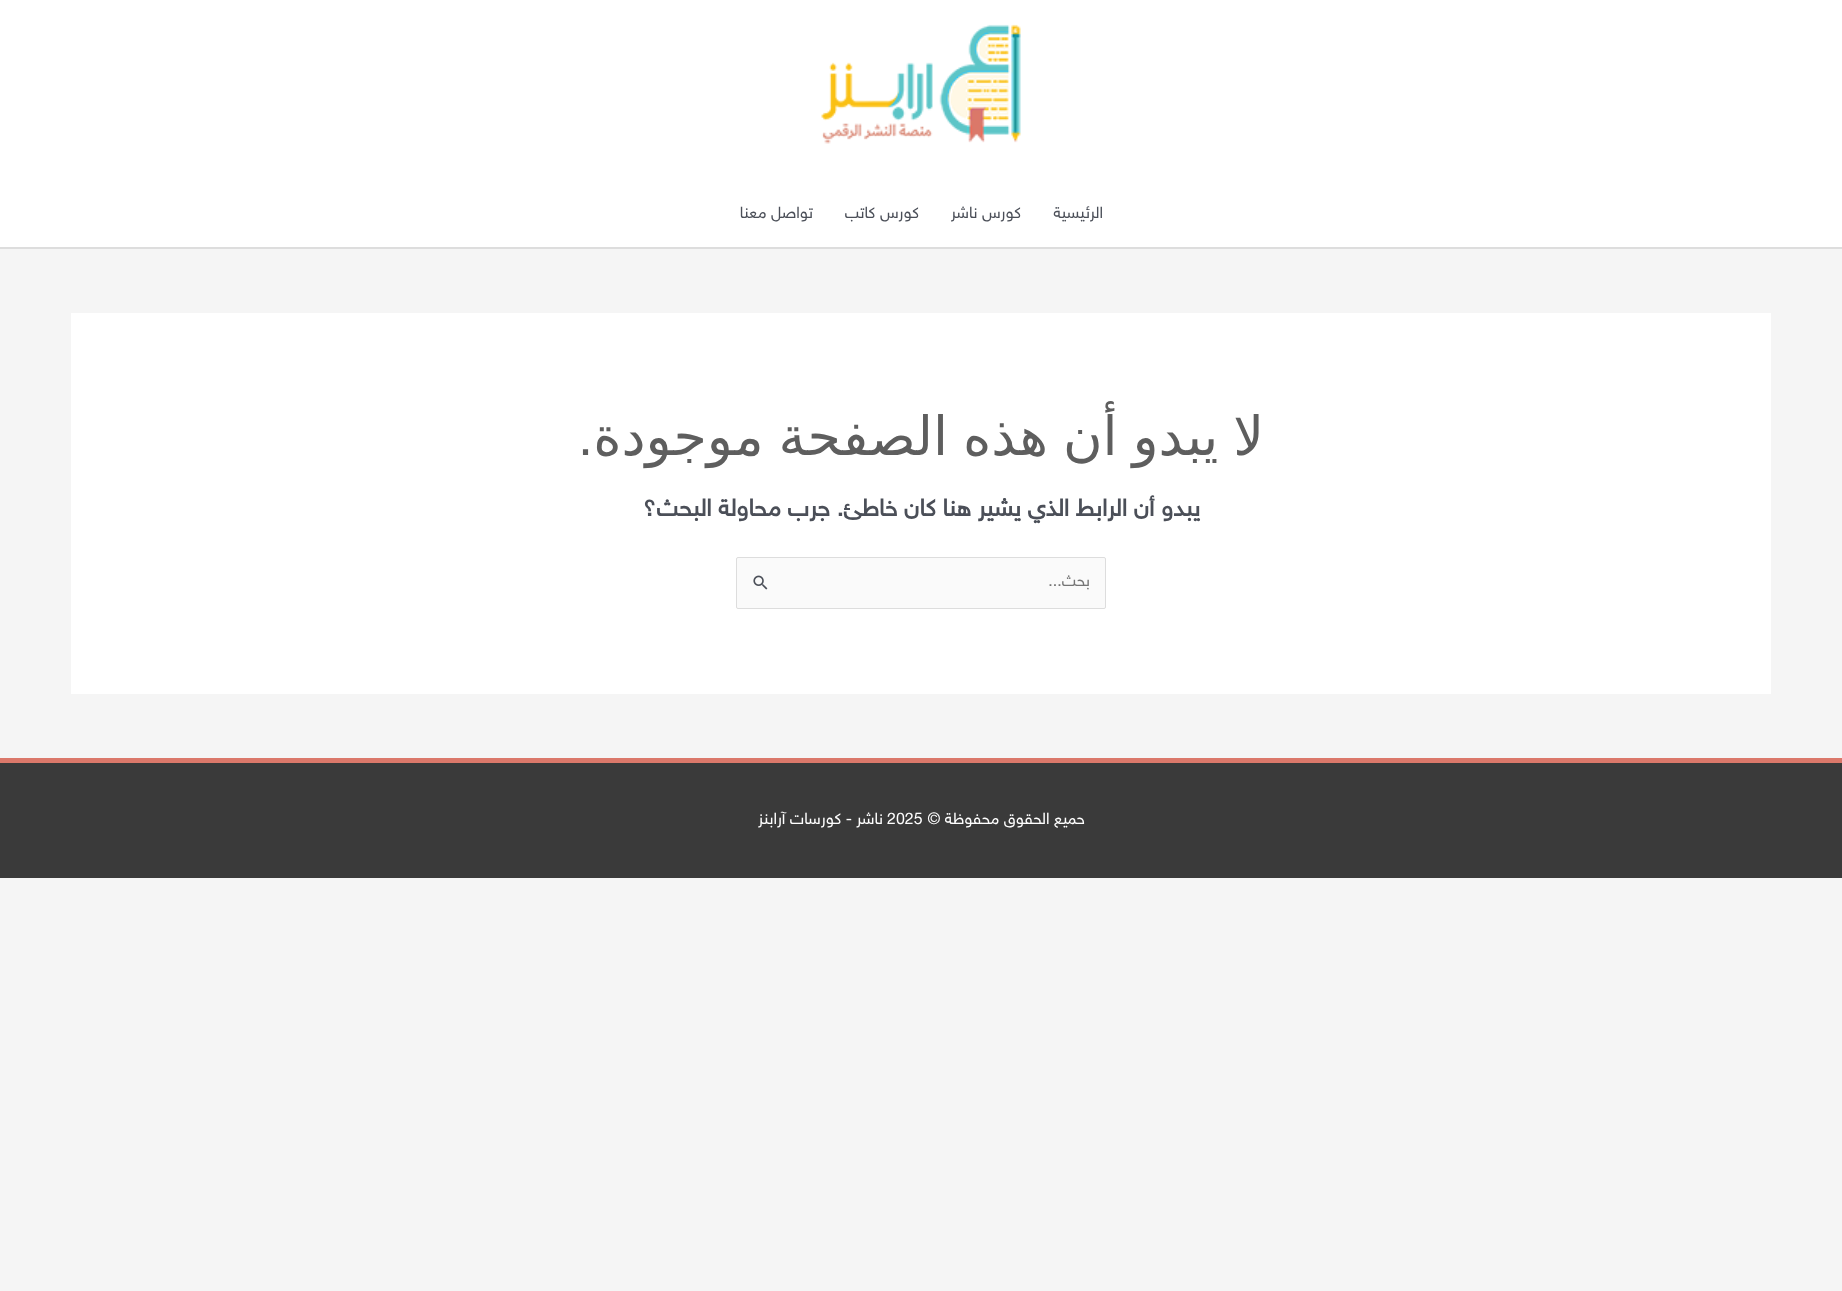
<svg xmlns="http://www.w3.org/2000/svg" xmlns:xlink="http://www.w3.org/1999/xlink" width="1842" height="1291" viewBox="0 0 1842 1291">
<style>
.cls-1{font:16px 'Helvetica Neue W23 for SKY';direction:rtl;fill:#4b4f58}
.cls-2{font:54px DejaVu Sans;direction:rtl;fill:#5e5e5e}
.cls-3{font:54px Liberation Sans;direction:rtl;fill:#5e5e5e}
.cls-4{font:bold 24px 'Helvetica Neue W23 for SKY';direction:rtl;fill:#4b4f58}
.cls-5{font:16px 'Helvetica Neue W23 for SKY';direction:rtl;fill:#757575}
.cls-6{font:16px 'Helvetica Neue W23 for SKY';direction:rtl;fill:#ffffff}
.cls-7{font:16px 'Helvetica Neue W23 for SKY';fill:#ffffff}
</style>
<rect width="100%" height="100%" fill="#f5f5f5"/>
<rect fill="#ffffff" x="0" y="0" width="1842" height="247"/>
<rect fill="#dddddd" x="0" y="247" width="1842" height="2"/>
<image xlink:href="image0.png" x="821" y="24" width="200" height="120"/>
<rect fill="#ffffff" x="71" y="313" width="1700" height="381"/>
<rect fill="#fafafa" stroke="#dddddd" x="736.5" y="557.5" width="369" height="51" rx="1.5"/>
<image xlink:href="image1.png" x="753" y="575" width="15" height="15"/>
<rect fill="#db786a" x="0" y="758" width="1842" height="5"/>
<rect fill="#3a3a3a" x="0" y="763" width="1842" height="115"/>
<text class="cls-1" x="1103" y="218">الرئيسية</text>
<text class="cls-1" x="1021" y="218">كورس ناشر</text>
<text class="cls-1" x="919" y="218">كورس كاتب</text>
<text class="cls-1" x="813" y="218">تواصل معنا</text>
<text class="cls-2" x="1264" y="455" word-spacing="-2.25">لا يبدو أن هذه الصفحة موجودة</text>
<text class="cls-3" x="593" y="455">.</text>
<text class="cls-4" x="1200" y="516">يبدو أن الرابط الذي يشير هنا كان خاطئ. جرب محاولة البحث؟</text>
<text class="cls-5" x="1090" y="586">بحث...</text>
<text class="cls-6" x="1085" y="824">حميع الحقوق محفوظة ©</text>
<text class="cls-7" x="887" y="824">2025</text>
<text class="cls-6" x="883" y="824">ناشر - كورسات آرابنز</text>
</svg>
